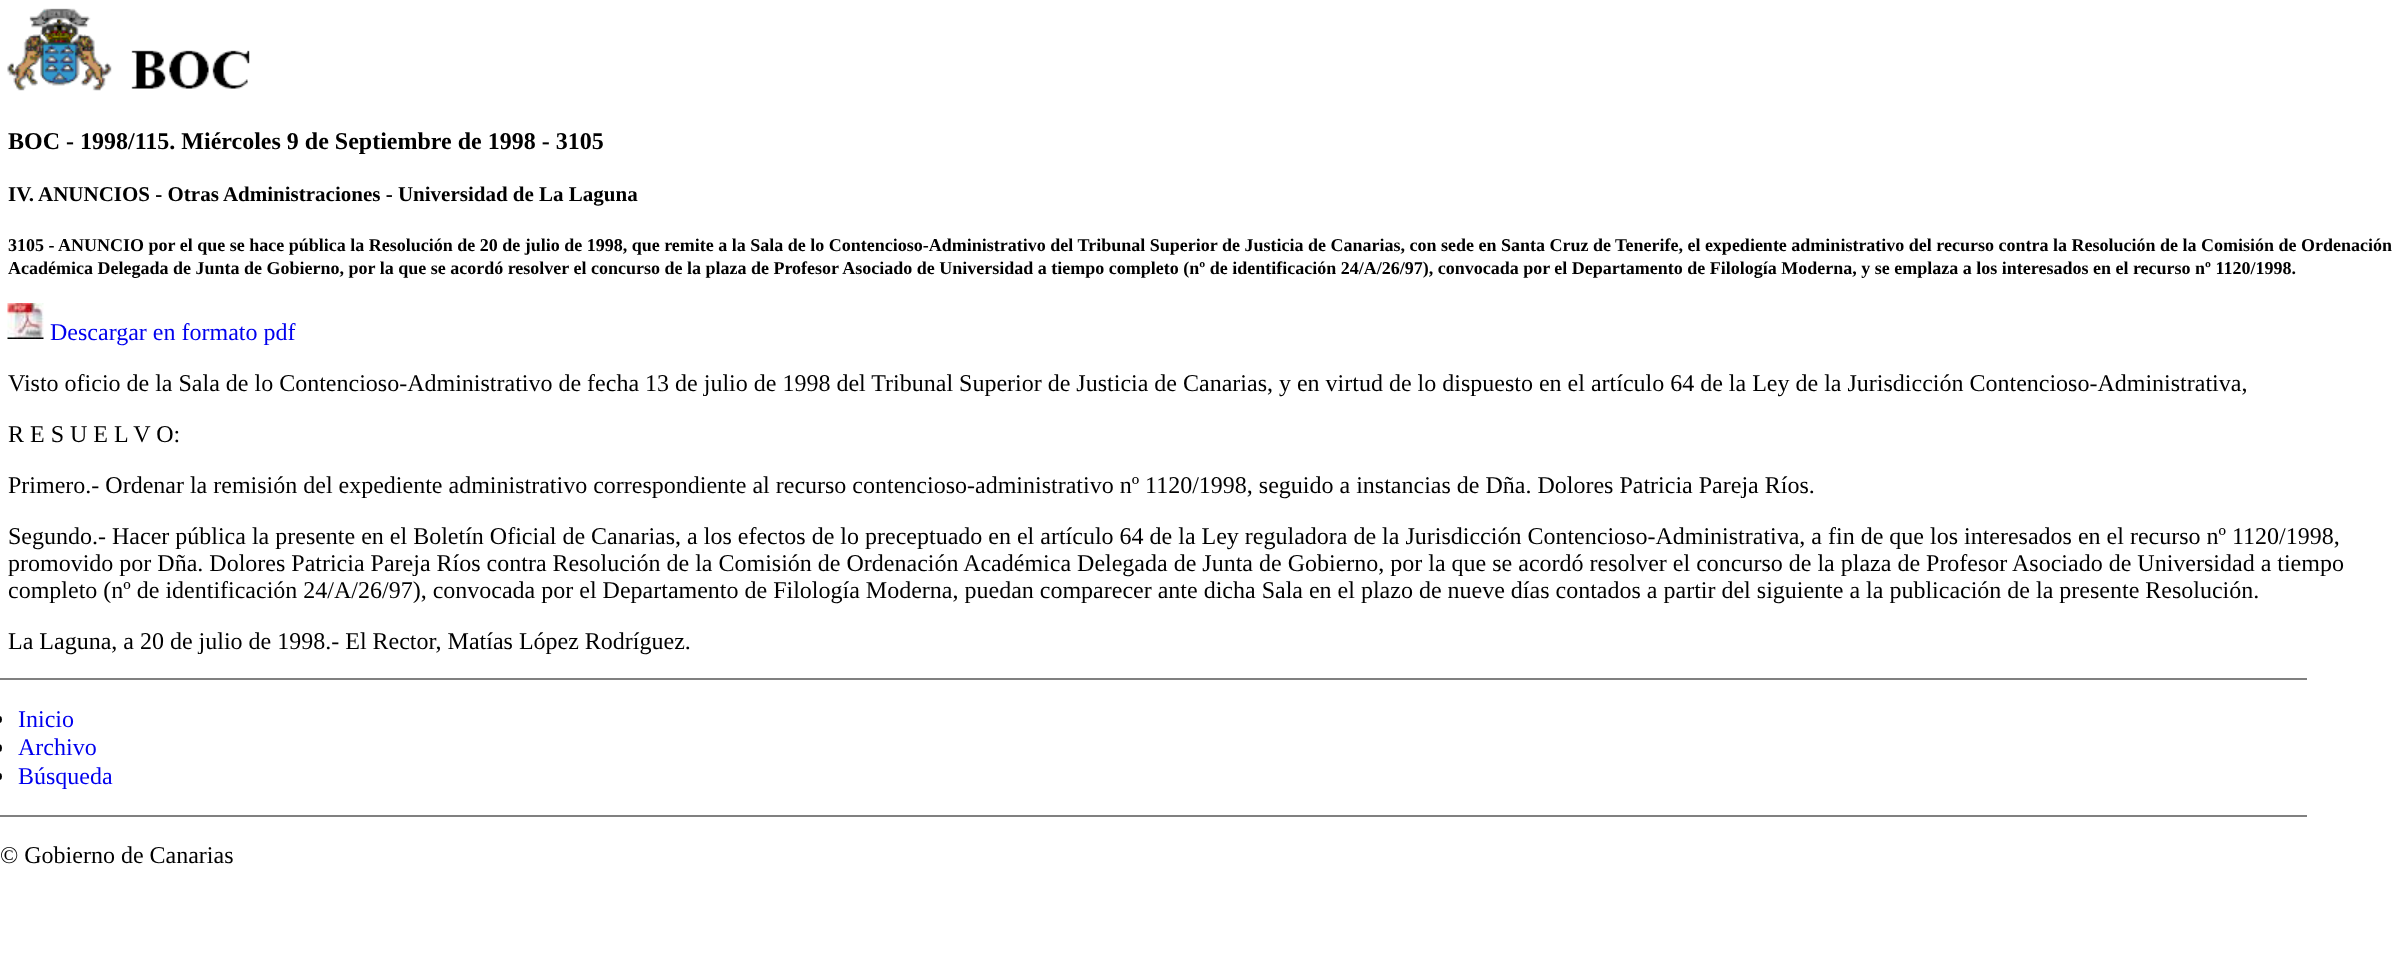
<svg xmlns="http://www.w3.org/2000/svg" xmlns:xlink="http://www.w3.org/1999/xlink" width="2402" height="968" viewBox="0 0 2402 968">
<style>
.cls-1{font:bold 24px Liberation Serif;fill:#000000}
.cls-2{font:bold 21px Liberation Serif;fill:#000000}
.cls-3{font:bold 18px Liberation Serif;fill:#000000}
.cls-4{font:24px Liberation Serif;fill:#0000ee}
.cls-5{font:24px Liberation Serif;fill:#000000}
</style>
<rect width="100%" height="100%" fill="#ffffff"/>
<image xlink:href="image0.png" x="7" y="8" width="105" height="83"/>
<image xlink:href="image1.png" x="131" y="50" width="119" height="39"/>
<image xlink:href="image2.png" x="7" y="303" width="37" height="36"/>
<rect fill="#808080" x="0" y="678" width="2307" height="2"/>
<rect fill="#000000" x="-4" y="716" width="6" height="7" rx="3.5"/>
<rect fill="#000000" x="-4" y="744" width="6" height="8" rx="4"/>
<rect fill="#000000" x="-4" y="773" width="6" height="7" rx="3.5"/>
<rect fill="#808080" x="0" y="815" width="2307" height="2"/>
<text class="cls-1" x="8" y="149">BOC - 1998/115. Miércoles 9 de Septiembre de 1998 - 3105</text>
<text class="cls-2" x="8" y="201">IV. ANUNCIOS - Otras Administraciones - Universidad de La Laguna</text>
<text class="cls-3"><tspan x="8" y="251">3105 - ANUNCIO por el que se hace pública la Resolución de 20 de julio de 1998, que remite a la Sala de lo Contencioso-Administrativo del Tribunal Superior de Justicia de Canarias, con sede en Santa Cruz de Tenerife, el expediente administrativo del recurso contra la Resolución de la Comisión de Ordenación</tspan><tspan x="8" y="274">Académica Delegada de Junta de Gobierno, por la que se acordó resolver el concurso de la plaza de Profesor Asociado de Universidad a tiempo completo (nº de identificación 24/A/26/97), convocada por el Departamento de Filología Moderna, y se emplaza a los interesados en el recurso nº 1120/1998.</tspan></text>
<text class="cls-4" x="50" y="340">Descargar en formato pdf</text>
<text class="cls-5" x="8" y="391">Visto oficio de la Sala de lo Contencioso-Administrativo de fecha 13 de julio de 1998 del Tribunal Superior de Justicia de Canarias, y en virtud de lo dispuesto en el artículo 64 de la Ley de la Jurisdicción Contencioso-Administrativa,</text>
<text class="cls-5" x="8" y="442">R E S U E L V O:</text>
<text class="cls-5" x="8" y="493">Primero.- Ordenar la remisión del expediente administrativo correspondiente al recurso contencioso-administrativo nº 1120/1998, seguido a instancias de Dña. Dolores Patricia Pareja Ríos.</text>
<text class="cls-5"><tspan x="8" y="544">Segundo.- Hacer pública la presente en el Boletín Oficial de Canarias, a los efectos de lo preceptuado en el artículo 64 de la Ley reguladora de la Jurisdicción Contencioso-Administrativa, a fin de que los interesados en el recurso nº 1120/1998,</tspan><tspan x="8" y="571">promovido por Dña. Dolores Patricia Pareja Ríos contra Resolución de la Comisión de Ordenación Académica Delegada de Junta de Gobierno, por la que se acordó resolver el concurso de la plaza de Profesor Asociado de Universidad a tiempo</tspan><tspan x="8" y="598">completo (nº de identificación 24/A/26/97), convocada por el Departamento de Filología Moderna, puedan comparecer ante dicha Sala en el plazo de nueve días contados a partir del siguiente a la publicación de la presente Resolución.</tspan></text>
<text class="cls-5" x="8" y="649">La Laguna, a 20 de julio de 1998.- El Rector, Matías López Rodríguez.</text>
<text class="cls-4"><tspan x="18" y="727">Inicio</tspan><tspan x="18" y="755">Archivo</tspan><tspan x="18" y="784">Búsqueda</tspan></text>
<text class="cls-5" x="0" y="863">© Gobierno de Canarias</text>
</svg>
